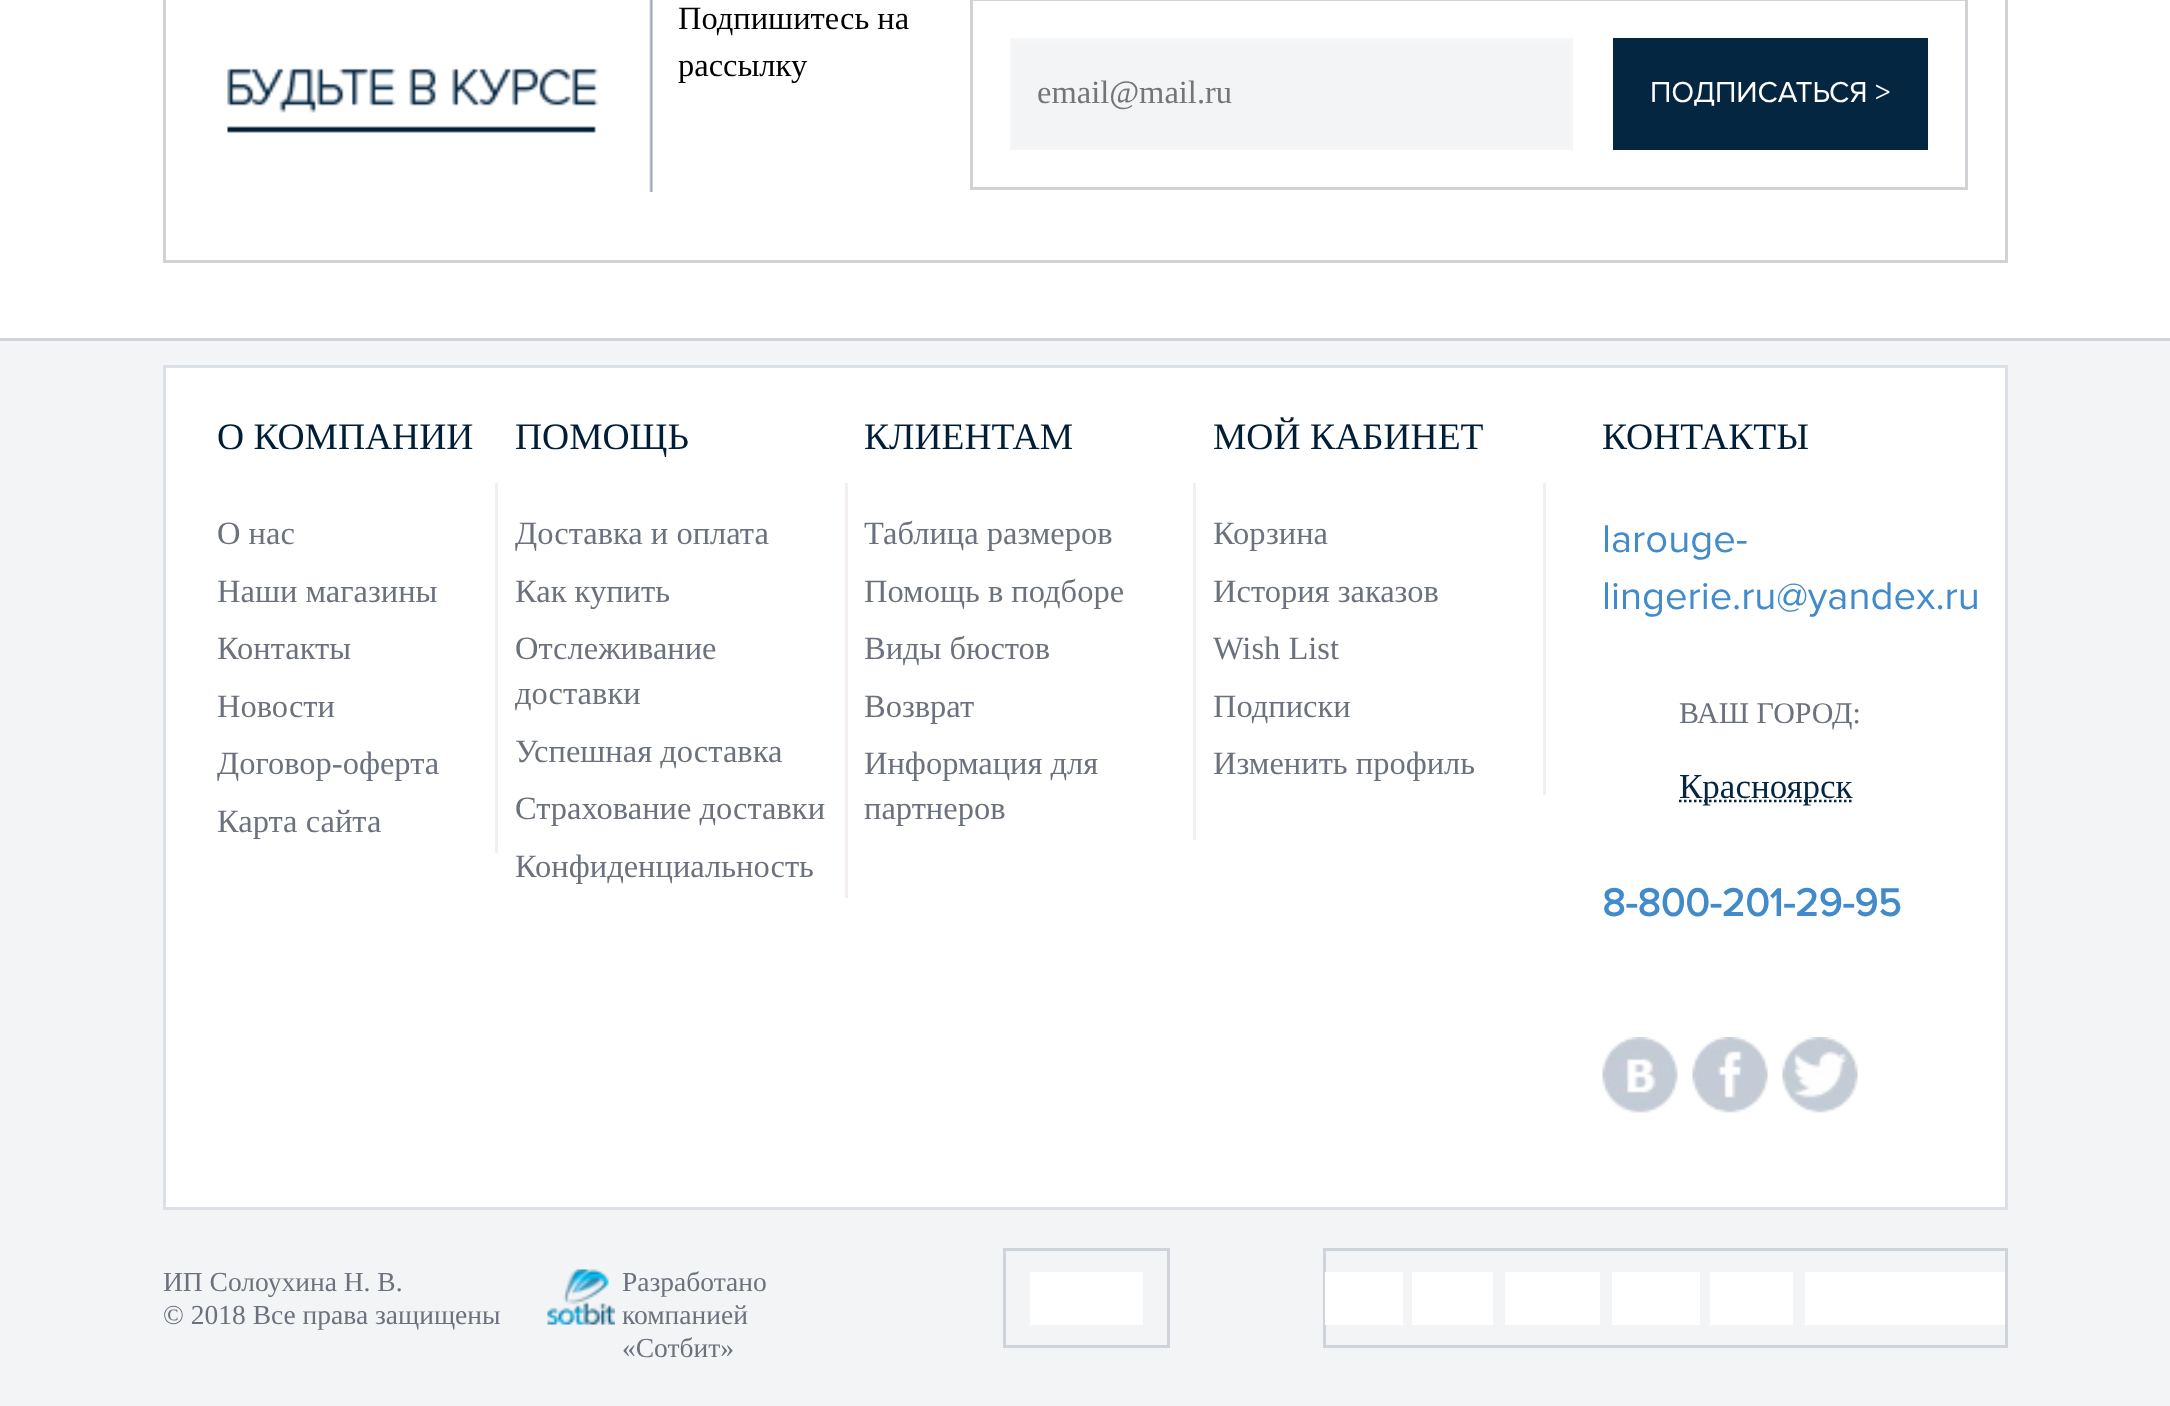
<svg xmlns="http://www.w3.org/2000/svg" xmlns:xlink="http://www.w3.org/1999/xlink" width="2170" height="1406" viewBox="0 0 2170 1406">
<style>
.cls-1{font:32.5px Liberation Serif;fill:#000000}
.cls-2{font:32.5px Liberation Serif;fill:#757575}
.cls-3{font:30px Proxima Nova;fill:#ffffff}
.cls-4{font:37.5px Liberation Serif;fill:#001f37}
.cls-5{font:32.5px Liberation Serif;fill:#6c727d}
.cls-6{font:40px Proxima Nova;fill:#428bca}
.cls-7{font:30px Liberation Serif;fill:#6c727d}
.cls-8{font:35px Liberation Serif;fill:#052640}
.cls-9{font:bold 40px Proxima Nova;fill:#428bca}
.cls-10{font:27.5px Liberation Serif;fill:#6c727d}
</style>
<rect width="100%" height="100%" fill="#ffffff"/>
<rect fill="none" stroke="#d1d2d6" stroke-width="3" x="164.5" y="-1.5" width="1842" height="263"/>
<image xlink:href="image0.png" x="227" y="0" width="426" height="192"/>
<rect fill="none" stroke="#d1d2d6" stroke-width="3" x="971.5" y="-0.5" width="995" height="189"/>
<rect fill="#f3f4f6" stroke="#f6f6f6" stroke-width="3" x="1011.5" y="39.5" width="560" height="109"/>
<rect fill="#052640" x="1613" y="38" width="315" height="112"/>
<rect fill="#f3f4f6" x="0" y="341" width="2170" height="1065"/>
<rect fill="#cfd3da" x="0" y="338" width="2170" height="3"/>
<rect fill="#ffffff" stroke="#dbdfe6" stroke-width="3" x="164.5" y="366.5" width="1842" height="842"/>
<rect fill="#f2efed" x="495" y="483" width="3" height="370"/>
<rect fill="#f2efed" x="845" y="483" width="3" height="415"/>
<rect fill="#f2efed" x="1193" y="483" width="3" height="357"/>
<rect fill="#f2efed" x="1543" y="483" width="3" height="312"/>
<path fill="none" stroke="#052640" stroke-width="2.5" stroke-dasharray="2.5 2.5" d="M1679 801H1852.5"/>
<image xlink:href="image1.png" x="1602" y="1037" width="76" height="76"/>
<image xlink:href="image2.png" x="1692" y="1037" width="76" height="76"/>
<image xlink:href="image3.png" x="1782" y="1037" width="76" height="76"/>
<image xlink:href="image4.png" x="547" y="1269" width="68" height="56"/>
<rect fill="none" stroke="#cfd3da" stroke-width="3" x="1004.5" y="1249.5" width="164" height="97"/>
<rect fill="#ffffff" x="1030" y="1272" width="113" height="53"/>
<rect fill="none" stroke="#cfd3da" stroke-width="3" x="1324.5" y="1249.5" width="682" height="97"/>
<rect fill="#ffffff" x="1325" y="1272" width="78" height="53"/>
<rect fill="#ffffff" x="1412" y="1272" width="81" height="53"/>
<rect fill="#ffffff" x="1505" y="1272" width="95" height="53"/>
<rect fill="#ffffff" x="1612" y="1272" width="88" height="53"/>
<rect fill="#ffffff" x="1710" y="1272" width="83" height="53"/>
<rect fill="#ffffff" x="1805" y="1272" width="200" height="53"/>
<text class="cls-1"><tspan x="678" y="29">Подпишитесь на</tspan><tspan x="678" y="76">рассылку</tspan></text>
<text class="cls-2" x="1037" y="103">email@mail.ru</text>
<text class="cls-3" x="1650" y="102">ПОДПИСАТЬСЯ &gt;</text>
<text class="cls-4" x="217" y="449">О КОМПАНИИ</text>
<text class="cls-5"><tspan x="217" y="544">О нас</tspan><tspan x="217" y="602">Наши магазины</tspan><tspan x="217" y="659">Контакты</tspan><tspan x="217" y="717">Новости</tspan><tspan x="217" y="774">Договор-оферта</tspan><tspan x="217" y="832">Карта сайта</tspan></text>
<text class="cls-4" x="515" y="449">ПОМОЩЬ</text>
<text class="cls-5"><tspan x="515" y="544">Доставка и оплата</tspan><tspan x="515" y="602">Как купить</tspan><tspan x="515" y="659">Отслеживание</tspan><tspan x="515" y="704">доставки</tspan><tspan x="515" y="762">Успешная доставка</tspan><tspan x="515" y="819">Страхование доставки</tspan><tspan x="515" y="877">Конфиденциальность</tspan></text>
<text class="cls-4" x="864" y="449">КЛИЕНТАМ</text>
<text class="cls-5"><tspan x="864" y="544">Таблица размеров</tspan><tspan x="864" y="602">Помощь в подборе</tspan><tspan x="864" y="659">Виды бюстов</tspan><tspan x="864" y="717">Возврат</tspan><tspan x="864" y="774">Информация для</tspan><tspan x="864" y="819">партнеров</tspan></text>
<text class="cls-4" x="1213" y="449">МОЙ КАБИНЕТ</text>
<text class="cls-5"><tspan x="1213" y="544">Корзина</tspan><tspan x="1213" y="602">История заказов</tspan><tspan x="1213" y="659">Wish List</tspan><tspan x="1213" y="717">Подписки</tspan><tspan x="1213" y="774">Изменить профиль</tspan></text>
<text class="cls-4" x="1602" y="449">КОНТАКТЫ</text>
<text class="cls-6"><tspan x="1602" y="552">larouge-</tspan><tspan x="1602" y="609">lingerie.ru@yandex.ru</tspan></text>
<text class="cls-7" x="1679" y="723">ВАШ ГОРОД:</text>
<text class="cls-8" x="1679" y="798">Красноярск</text>
<text class="cls-9" x="1602" y="916">8-800-201-29-95</text>
<text class="cls-10"><tspan x="163" y="1291">ИП Солоухина Н. В.</tspan><tspan x="163" y="1324">© 2018 Все права защищены</tspan></text>
<text class="cls-10"><tspan x="622" y="1291">Разработано</tspan><tspan x="622" y="1324">компанией</tspan><tspan x="622" y="1357">«Сотбит»</tspan></text>
</svg>
